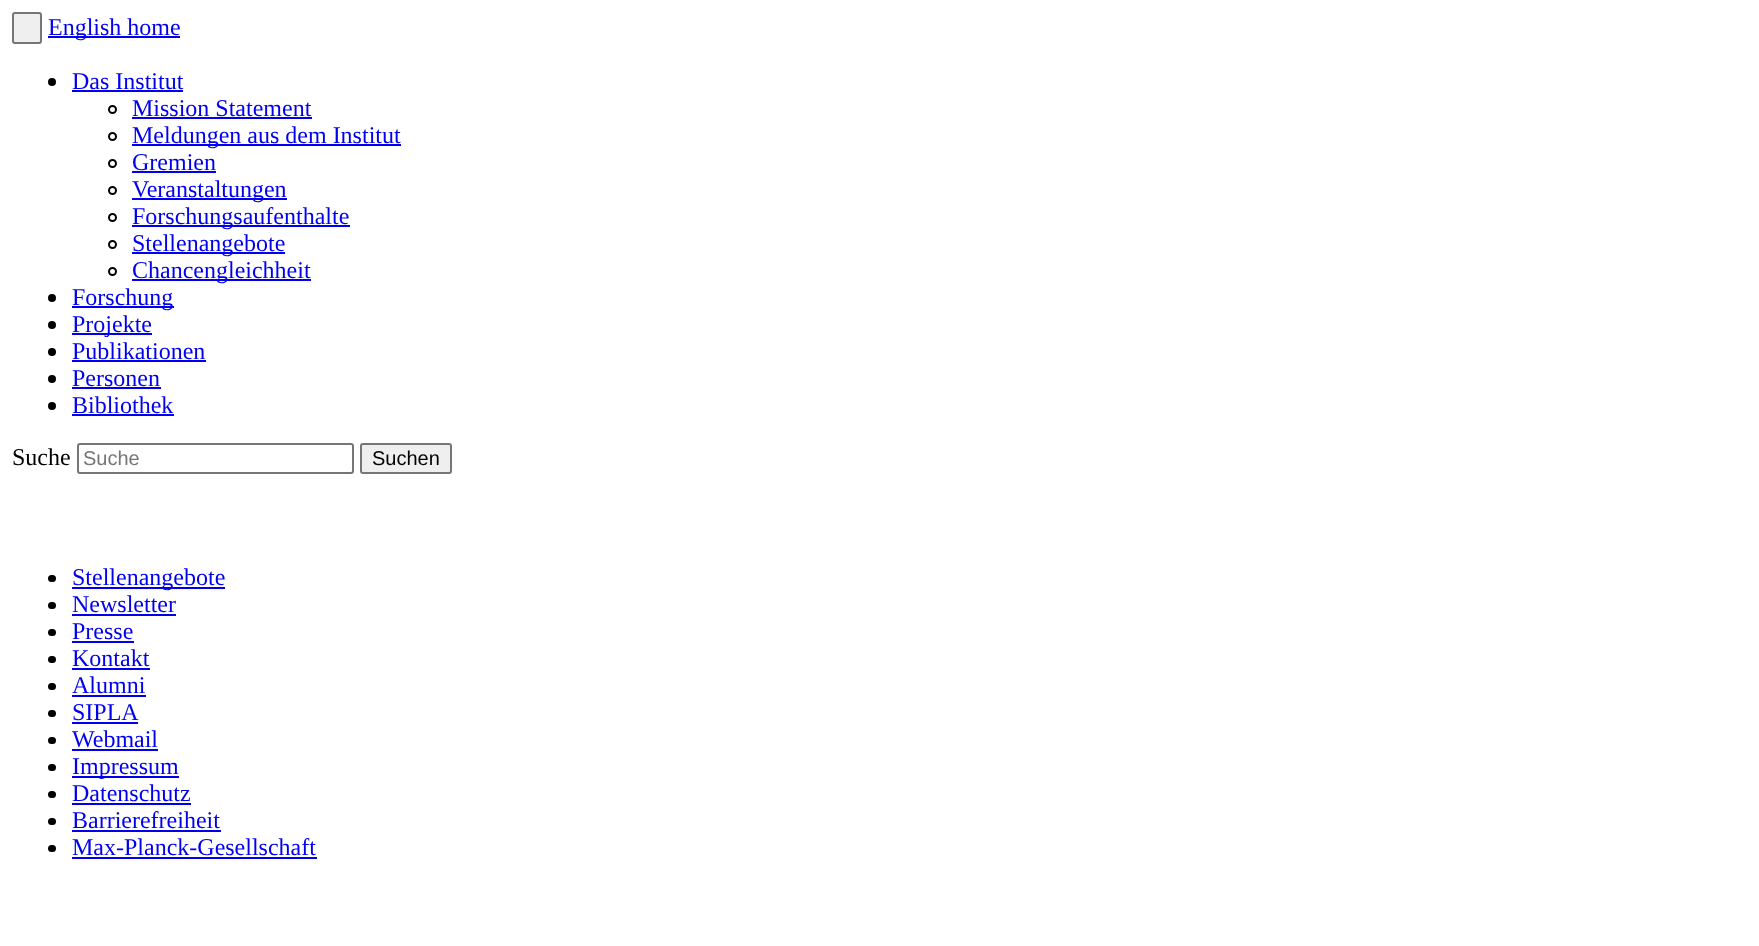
<svg xmlns="http://www.w3.org/2000/svg" xmlns:xlink="http://www.w3.org/1999/xlink" width="1759" height="946" viewBox="0 0 1759 946">
<style>
.cls-1{font:24px Liberation Serif;fill:#0000ee}
.cls-2{font:24px Liberation Serif;fill:#000000}
.cls-3{font:20px Liberation Sans;fill:#757575}
.cls-4{font:20px Liberation Sans;fill:#000000}
</style>
<rect width="100%" height="100%" fill="#ffffff"/>
<rect fill="#efefef" stroke="#767676" stroke-width="2" x="13" y="13" width="28" height="30" rx="2"/>
<rect fill="#0000ee" x="48" y="36" width="132" height="2"/>
<circle fill="#000000" cx="52" cy="82" r="4"/>
<rect fill="#0000ee" x="72" y="90" width="111" height="2"/>
<circle fill="none" stroke="#000000" stroke-width="2" cx="112.5" cy="109.5" r="3.5"/>
<rect fill="#0000ee" x="132" y="117" width="180" height="2"/>
<circle fill="none" stroke="#000000" stroke-width="2" cx="112.5" cy="136.5" r="3.5"/>
<rect fill="#0000ee" x="132" y="144" width="269" height="2"/>
<circle fill="none" stroke="#000000" stroke-width="2" cx="112.5" cy="163.5" r="3.5"/>
<rect fill="#0000ee" x="132" y="171" width="84" height="2"/>
<circle fill="none" stroke="#000000" stroke-width="2" cx="112.5" cy="190.5" r="3.5"/>
<rect fill="#0000ee" x="132" y="198" width="155" height="2"/>
<circle fill="none" stroke="#000000" stroke-width="2" cx="112.5" cy="217.5" r="3.5"/>
<rect fill="#0000ee" x="132" y="225" width="218" height="2"/>
<circle fill="none" stroke="#000000" stroke-width="2" cx="112.5" cy="244.5" r="3.5"/>
<rect fill="#0000ee" x="132" y="252" width="153" height="2"/>
<circle fill="none" stroke="#000000" stroke-width="2" cx="112.5" cy="271.5" r="3.5"/>
<rect fill="#0000ee" x="132" y="279" width="179" height="2"/>
<circle fill="#000000" cx="52" cy="298" r="4"/>
<rect fill="#0000ee" x="72" y="306" width="102" height="2"/>
<circle fill="#000000" cx="52" cy="325" r="4"/>
<rect fill="#0000ee" x="72" y="333" width="80" height="2"/>
<circle fill="#000000" cx="52" cy="352" r="4"/>
<rect fill="#0000ee" x="72" y="360" width="134" height="2"/>
<circle fill="#000000" cx="52" cy="379" r="4"/>
<rect fill="#0000ee" x="72" y="387" width="89" height="2"/>
<circle fill="#000000" cx="52" cy="406" r="4"/>
<rect fill="#0000ee" x="72" y="414" width="102" height="2"/>
<rect fill="none" stroke="#767676" stroke-width="2" x="78" y="444" width="275" height="29" rx="2"/>
<rect fill="#efefef" stroke="#767676" stroke-width="2" x="361" y="444" width="90" height="29" rx="2"/>
<rect fill="#000000" x="48" y="575" width="8" height="7" rx="3.5"/>
<rect fill="#0000ee" x="72" y="587" width="153" height="2"/>
<rect fill="#000000" x="48" y="602" width="8" height="7" rx="3.5"/>
<rect fill="#0000ee" x="72" y="614" width="104" height="2"/>
<rect fill="#000000" x="48" y="629" width="8" height="7" rx="3.5"/>
<rect fill="#0000ee" x="72" y="641" width="62" height="2"/>
<rect fill="#000000" x="48" y="656" width="8" height="7" rx="3.5"/>
<rect fill="#0000ee" x="72" y="668" width="78" height="2"/>
<rect fill="#000000" x="48" y="683" width="8" height="7" rx="3.5"/>
<rect fill="#0000ee" x="72" y="695" width="74" height="2"/>
<rect fill="#000000" x="48" y="710" width="8" height="7" rx="3.5"/>
<rect fill="#0000ee" x="72" y="722" width="66" height="2"/>
<rect fill="#000000" x="48" y="737" width="8" height="7" rx="3.5"/>
<rect fill="#0000ee" x="72" y="749" width="86" height="2"/>
<rect fill="#000000" x="48" y="764" width="8" height="7" rx="3.5"/>
<rect fill="#0000ee" x="72" y="776" width="107" height="2"/>
<rect fill="#000000" x="48" y="791" width="8" height="7" rx="3.5"/>
<rect fill="#0000ee" x="72" y="803" width="119" height="2"/>
<rect fill="#000000" x="48" y="818" width="8" height="7" rx="3.5"/>
<rect fill="#0000ee" x="72" y="830" width="149" height="2"/>
<rect fill="#000000" x="48" y="845" width="8" height="7" rx="3.5"/>
<rect fill="#0000ee" x="72" y="857" width="245" height="2"/>
<text class="cls-1" x="48" y="35">English home</text>
<text class="cls-1" x="72" y="89">Das Institut</text>
<text class="cls-1"><tspan x="132" y="116">Mission Statement</tspan><tspan x="132" y="143">Meldungen aus dem Institut</tspan><tspan x="132" y="170">Gremien</tspan><tspan x="132" y="197">Veranstaltungen</tspan><tspan x="132" y="224">Forschungsaufenthalte</tspan><tspan x="132" y="251">Stellenangebote</tspan><tspan x="132" y="278">Chancengleichheit</tspan></text>
<text class="cls-1"><tspan x="72" y="305">Forschung</tspan><tspan x="72" y="332">Projekte</tspan><tspan x="72" y="359">Publikationen</tspan><tspan x="72" y="386">Personen</tspan><tspan x="72" y="413">Bibliothek</tspan></text>
<text class="cls-2" x="12" y="465">Suche</text>
<text class="cls-3" x="83" y="465">Suche</text>
<text class="cls-4" x="372" y="465">Suchen</text>
<text class="cls-1"><tspan x="72" y="585">Stellenangebote</tspan><tspan x="72" y="612">Newsletter</tspan><tspan x="72" y="639">Presse</tspan><tspan x="72" y="666">Kontakt</tspan><tspan x="72" y="693">Alumni</tspan><tspan x="72" y="720">SIPLA</tspan><tspan x="72" y="747">Webmail</tspan><tspan x="72" y="774">Impressum</tspan><tspan x="72" y="801">Datenschutz</tspan><tspan x="72" y="828">Barrierefreiheit</tspan><tspan x="72" y="855">Max-Planck-Gesellschaft</tspan></text>
</svg>
